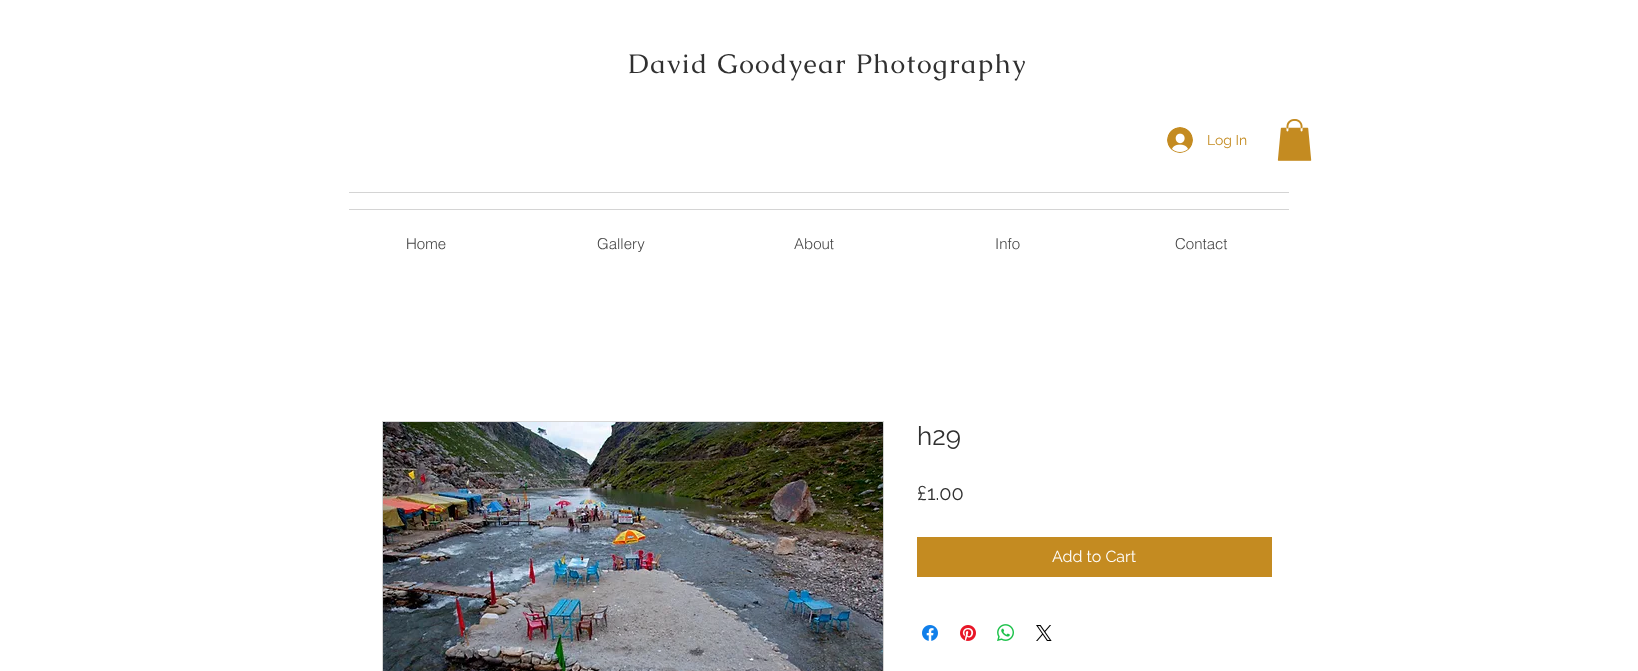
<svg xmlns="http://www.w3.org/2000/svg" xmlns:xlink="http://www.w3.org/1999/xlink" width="1638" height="671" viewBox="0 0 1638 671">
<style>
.cls-1{font:27px Caudex;letter-spacing:1.35px;fill:#303030}
.cls-2{font:14px Raleway;fill:#c48b21}
.cls-3{font:300 15px helvetica;fill:#444444}
.cls-4{font:26px Raleway;fill:#303030}
.cls-5{font:20px Raleway;fill:#303030}
.cls-6{font:16px Raleway;fill:#ffffff}
</style>
<rect width="100%" height="100%" fill="#ffffff"/>
<image xlink:href="image0.png" x="1167" y="127" width="26" height="26"/>
<image xlink:href="image1.png" x="1277" y="119" width="35" height="42"/>
<rect fill="#d4d4d4" x="349" y="209" width="940" height="1"/>
<rect fill="#d4d4d4" x="349" y="192" width="940" height="1"/>
<rect fill="none" stroke="#d6d6d6" x="382.5" y="421.5" width="501" height="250"/>
<image xlink:href="image2.png" x="383" y="422" width="500" height="249"/>
<rect fill="#c48b21" x="917" y="537" width="355" height="40"/>
<image xlink:href="image3.png" x="922" y="625" width="16" height="16"/>
<image xlink:href="image4.png" x="960" y="625" width="16" height="16"/>
<image xlink:href="image5.png" x="997" y="624" width="17" height="17"/>
<image xlink:href="image6.png" x="1036" y="625" width="16" height="16"/>
<text class="cls-1" x="628" y="73">David Goodyear Photography</text>
<text class="cls-2" x="1207" y="145">Log In</text>
<text class="cls-3" x="406" y="249">Home</text>
<text class="cls-3" x="597" y="249">Gallery</text>
<text class="cls-3" x="794" y="249">About</text>
<text class="cls-3" x="995" y="249">Info</text>
<text class="cls-3" x="1175" y="249">Contact</text>
<text class="cls-4" x="917" y="445">h29</text>
<text class="cls-5" x="917" y="500">£1.00</text>
<text class="cls-6" x="1052" y="562">Add to Cart</text>
</svg>
